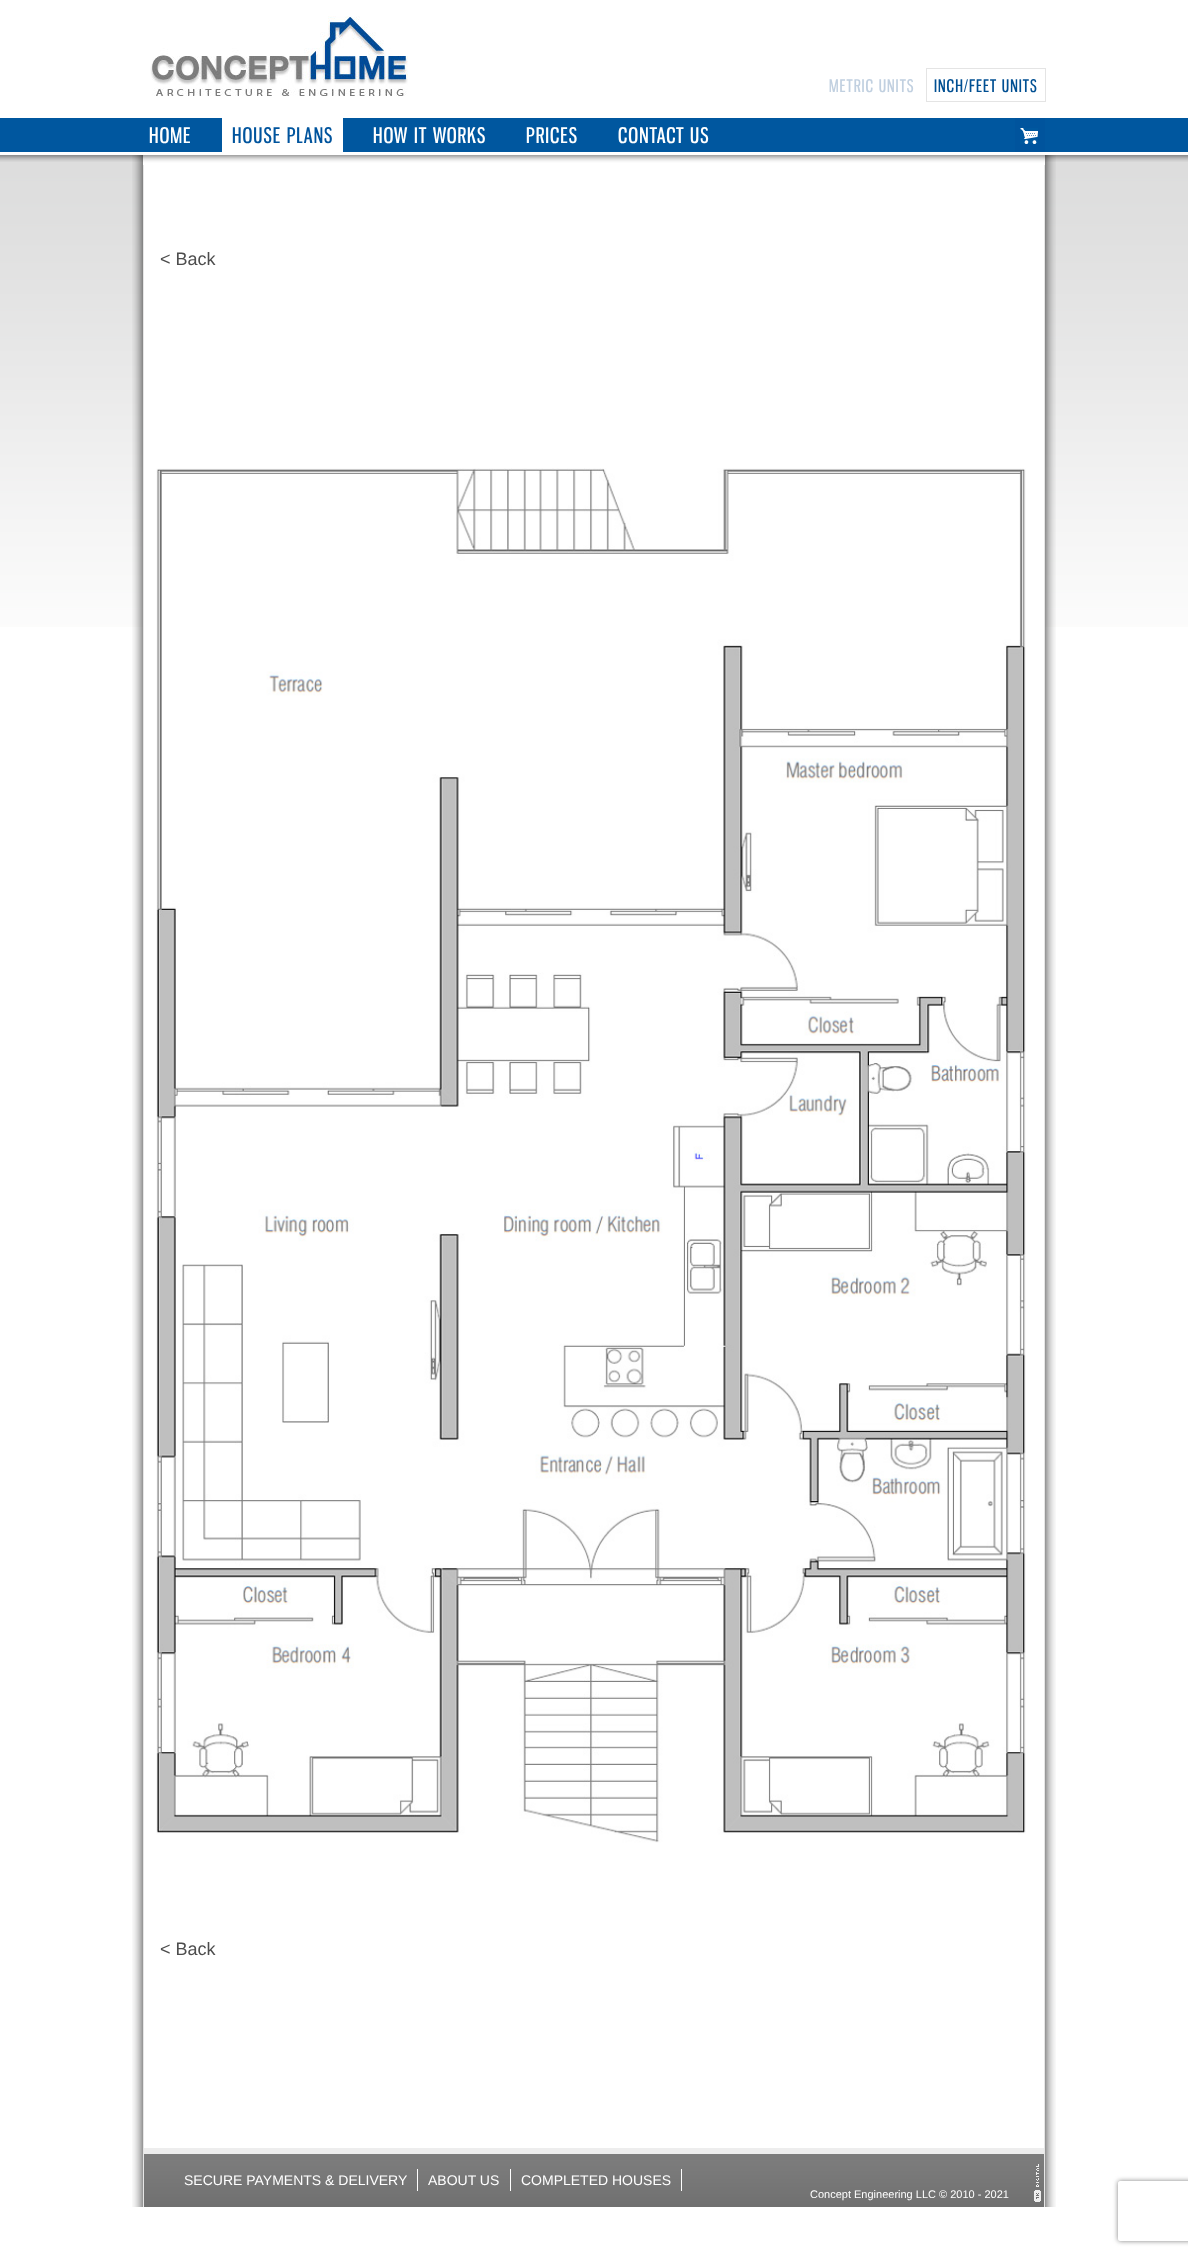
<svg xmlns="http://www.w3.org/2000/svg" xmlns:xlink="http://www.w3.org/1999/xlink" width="1188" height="2255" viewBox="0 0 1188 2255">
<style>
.cls-1{font:17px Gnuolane;letter-spacing:1px;fill:#c1d0e0}
.cls-2{font:17px Gnuolane;letter-spacing:1px;fill:#004f92}
.cls-3{font:21px Gnuolane;letter-spacing:1px;fill:#ffffff}
.cls-4{font:21px Gnuolane;letter-spacing:1px;fill:#00549d}
.cls-5{font:18px Liberation Sans;fill:#4d4d4d}
.cls-6{font:14px Liberation Sans;fill:#ffffff}
.cls-7{font:11px Liberation Sans;fill:#ffffff}
</style>
<defs>
<clipPath id="clip1"><path d="M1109 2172H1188V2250H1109ZM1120 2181H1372C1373 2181 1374 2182 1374 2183V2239C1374 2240 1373 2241 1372 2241H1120C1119 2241 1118 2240 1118 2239V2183C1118 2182 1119 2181 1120 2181Z" clip-rule="evenodd"/></clipPath>
</defs>
<rect width="100%" height="100%" fill="#ffffff"/>
<image xlink:href="image0.png" x="0" y="155" width="1188" height="472"/>
<image xlink:href="image1.png" x="0" y="155" width="1188" height="7"/>
<image xlink:href="image2.png" x="150" y="16" width="258" height="80"/>
<rect fill="none" stroke="#e4e4e4" x="926.5" y="68.5" width="119" height="33"/>
<rect fill="#00579f" x="0" y="118" width="1188" height="34"/>
<rect fill="#00549d" x="1015" y="118" width="30" height="34"/>
<image xlink:href="image3.png" x="1020" y="128" width="18" height="16"/>
<rect fill="#ffffff" x="222" y="118" width="121" height="34"/>
<image xlink:href="image4.png" x="132" y="155" width="924" height="2052"/>
<image xlink:href="image5.png" x="143" y="155" width="902" height="10"/>
<image xlink:href="image6.png" x="156" y="468" width="870" height="1375"/>
<image xlink:href="image7.png" x="144" y="2148" width="900" height="59"/>
<rect fill="#ffffff" x="417" y="2169" width="1" height="22"/>
<rect fill="#ffffff" x="510" y="2169" width="1" height="22"/>
<rect fill="#ffffff" x="681" y="2169" width="1" height="22"/>
<image xlink:href="image8.png" x="1034" y="2164" width="7" height="38"/>
<g clip-path="url(#clip1)">
<rect fill="#808080" filter="blur(2.5px)" x="1118" y="2181" width="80" height="60" rx="2"/>
</g>
<text class="cls-1" x="829" y="92">METRIC UNITS</text>
<text class="cls-2" x="934" y="92">INCH/FEET UNITS</text>
<text class="cls-3" x="149" y="143">HOME</text>
<text class="cls-4" x="232" y="143">HOUSE PLANS</text>
<text class="cls-3" x="373" y="143">HOW IT WORKS</text>
<text class="cls-3" x="526" y="143">PRICES</text>
<text class="cls-3" x="618" y="143">CONTACT US</text>
<text class="cls-5" x="160" y="265">&lt; Back</text>
<text class="cls-5" x="160" y="1955">&lt; Back</text>
<text class="cls-6" x="184" y="2185">SECURE PAYMENTS &amp; DELIVERY</text>
<text class="cls-6" x="428" y="2185">ABOUT US</text>
<text class="cls-6" x="521" y="2185">COMPLETED HOUSES</text>
<text class="cls-7" x="810" y="2198">Concept Engineering LLC © 2010 - 2021</text>
</svg>
